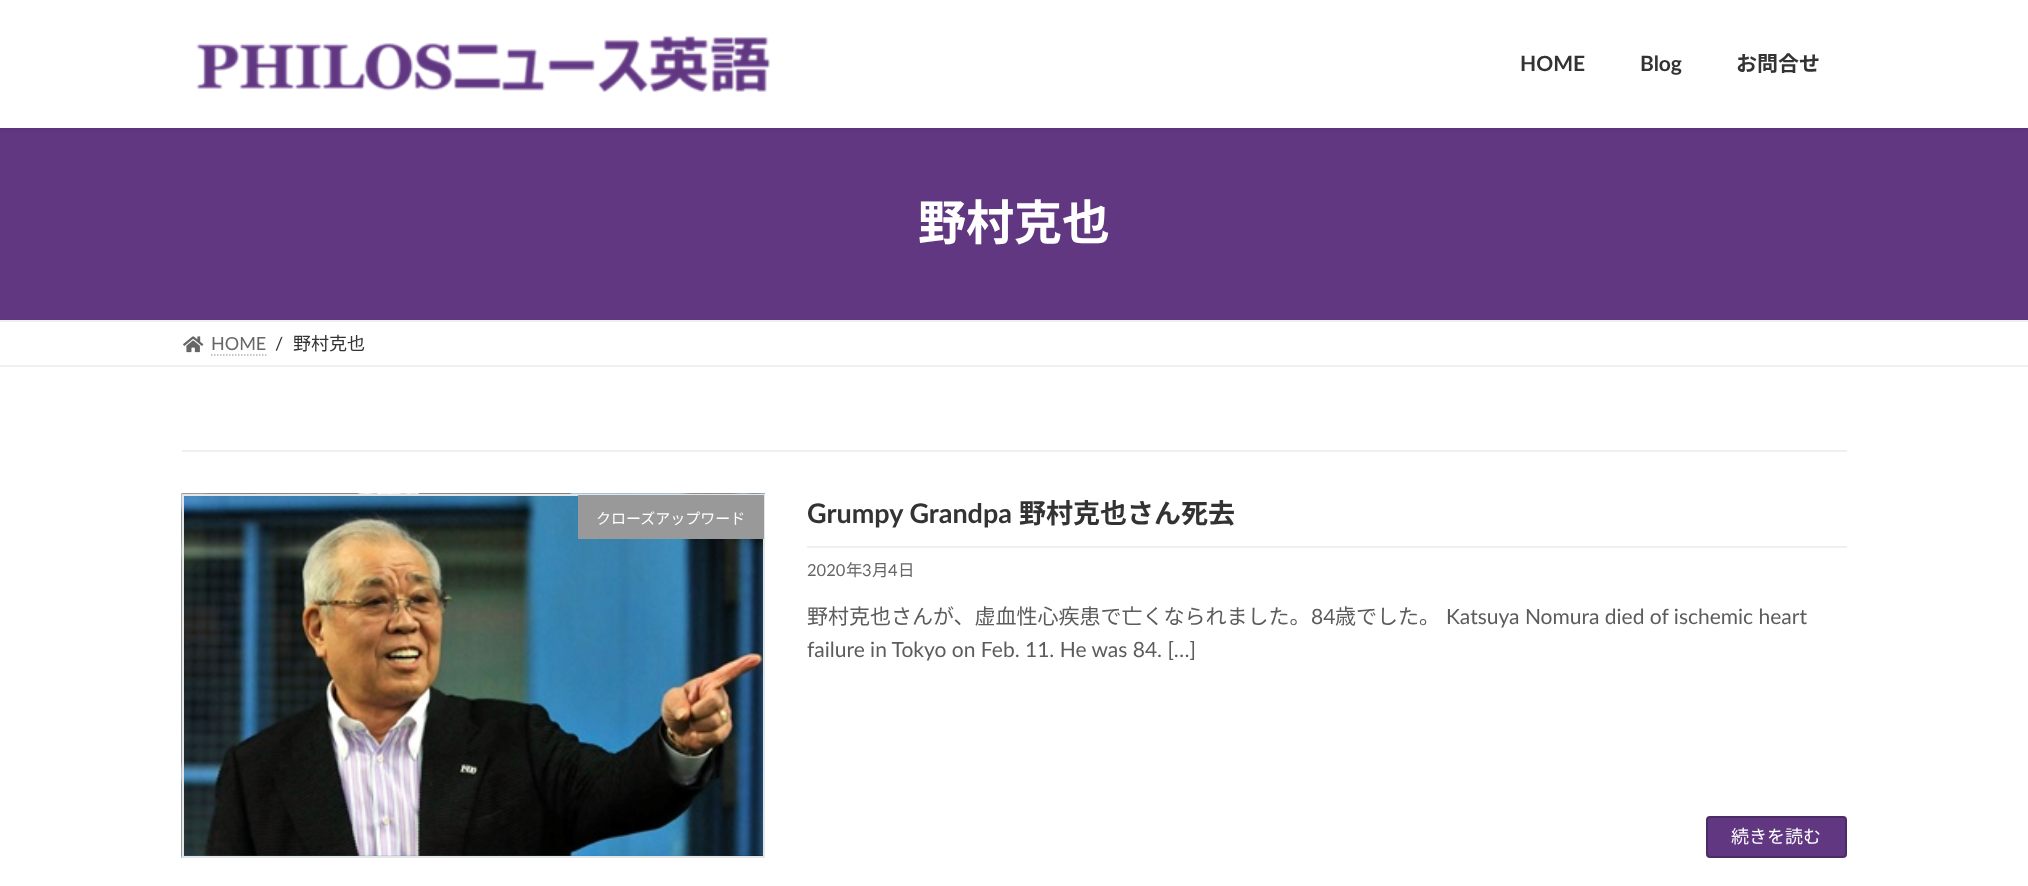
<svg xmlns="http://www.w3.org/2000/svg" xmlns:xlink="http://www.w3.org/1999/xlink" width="2028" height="886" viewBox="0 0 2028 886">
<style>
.cls-1{font:bold 21px Lato;fill:#333333}
.cls-2{font:bold 21px Noto Sans JP;fill:#333333}
.cls-3{font:bold 48px Noto Sans JP;fill:#ffffff}
.cls-4{font:18px Lato;fill:#666666}
.cls-5{font:18px Lato;fill:#333333}
.cls-6{font:18px Noto Sans JP;fill:#333333}
.cls-7{font:15px Noto Sans JP;fill:#ffffff}
.cls-8{font:bold 27px Lato;fill:#333333}
.cls-9{font:bold 27px Noto Sans JP;fill:#333333}
.cls-10{font:16.5px Lato;fill:#666666}
.cls-11{font:16.5px Noto Sans JP;fill:#666666}
.cls-12{font:21px Noto Sans JP;fill:#5c5c5c}
.cls-13{font:21px Lato;fill:#5c5c5c}
.cls-14{font:18px Noto Sans JP;fill:#ffffff}
</style>
<rect width="100%" height="100%" fill="#ffffff"/>
<rect fill="#603780" x="0" y="128" width="2028" height="192"/>
<rect fill="#000000" fill-opacity="0.05" filter="blur(2px)" x="0" y="2" width="2028" height="127"/>
<rect fill="#ffffff" x="0" y="0" width="2028" height="128"/>
<image xlink:href="image0.png" x="196" y="35" width="574" height="57"/>
<rect fill="#f0f0f0" x="0" y="320" width="2028" height="2"/>
<rect fill="#f0f0f0" x="0" y="365" width="2028" height="2"/>
<image xlink:href="image1.png" x="183" y="336" width="21" height="17"/>
<path fill="none" stroke="#b3b3b3" stroke-width="1.5" stroke-dasharray="1.5 1.5" d="M211 355H266.5"/>
<rect fill="#f0f0f0" x="182" y="450" width="1665" height="2"/>
<image xlink:href="image2.png" x="181" y="493" width="584" height="365"/>
<rect fill="none" stroke="#e5e5e5" stroke-width="2" x="183" y="495" width="581" height="362"/>
<rect fill="#999999" x="578" y="495" width="186" height="44"/>
<rect fill="#f0f0f0" x="807" y="546" width="1040" height="2"/>
<rect fill="#603780" stroke="#4c2c66" stroke-width="2" x="1707" y="817" width="139" height="40" rx="3"/>
<text class="cls-1" x="1520" y="71">HOME</text>
<text class="cls-1" x="1640" y="71">Blog</text>
<text class="cls-2" x="1736" y="71">お問合せ</text>
<text class="cls-3" x="918" y="240">野村克也</text>
<text class="cls-4" x="211" y="350">HOME</text>
<text class="cls-5" x="275" y="350">/</text>
<text class="cls-6" x="293" y="350">野村克也</text>
<text class="cls-7" x="596" y="524">クローズアップワード</text>
<text class="cls-8" x="807" y="523">Grumpy Grandpa</text>
<text class="cls-9" x="1019" y="523">野村克也さん死去</text>
<text class="cls-10" x="807" y="576">2020</text>
<text class="cls-11" x="846" y="576">年</text>
<text class="cls-10" x="862" y="576">3</text>
<text class="cls-11" x="872" y="576">月</text>
<text class="cls-10" x="888" y="576">4</text>
<text class="cls-11" x="898" y="576">日</text>
<text class="cls-12" x="807" y="624">野村克也さんが、虚血性心疾患で亡くなられました。</text>
<text class="cls-13" x="1311" y="624">84</text>
<text class="cls-12" x="1335" y="624">歳でした。</text>
<text class="cls-13" x="1446" y="624">Katsuya Nomura died of ischemic heart</text>
<text class="cls-13" x="807" y="657">failure in Tokyo on Feb. 11. He was 84. […]</text>
<text class="cls-14" x="1731" y="843">続きを読む</text>
</svg>
